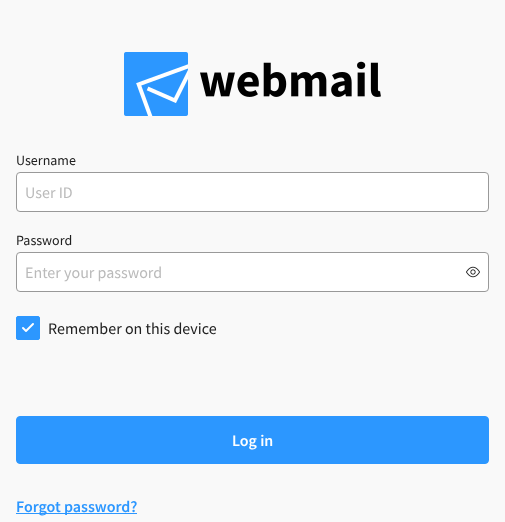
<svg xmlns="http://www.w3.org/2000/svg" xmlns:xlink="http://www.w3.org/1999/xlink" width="505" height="522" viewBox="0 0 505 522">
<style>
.cls-1{font:14px Source Sans Pro;fill:#202020}
.cls-2{font:16px Source Sans Pro;fill:#bababa}
.cls-3{font:16px Source Sans Pro;fill:#202020}
.cls-4{font:600 16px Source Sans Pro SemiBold;fill:#ffffff}
.cls-5{font:600 16px Source Sans Pro SemiBold;fill:#2c97ff}
</style>
<rect width="100%" height="100%" fill="#f9f9f9"/>
<image xlink:href="image0.png" x="124" y="52" width="257" height="64"/>
<rect fill="#ffffff" stroke="#999999" x="16.5" y="172.5" width="472" height="39" rx="3.5"/>
<rect fill="#ffffff" stroke="#999999" x="16.5" y="252.5" width="472" height="39" rx="3.5"/>
<image xlink:href="image1.png" x="466" y="266" width="14" height="12"/>
<rect fill="#2c97ff" stroke="#2c97ff" x="16.5" y="316.5" width="23" height="23" rx="1.5"/>
<image xlink:href="image2.png" x="22" y="323" width="12" height="9"/>
<rect fill="#2c97ff" stroke="#2c97ff" x="16.5" y="416.5" width="472" height="47" rx="3.5"/>
<rect fill="#2c97ff" x="16" y="513" width="121" height="1"/>
<text class="cls-1" x="16" y="165">Username</text>
<text class="cls-2" x="25" y="198">User ID</text>
<text class="cls-1" x="16" y="245">Password</text>
<text class="cls-2" x="25" y="278">Enter your password</text>
<text class="cls-3" x="48" y="334">Remember on this device</text>
<text class="cls-4" x="232" y="446">Log in</text>
<text class="cls-5" x="16" y="512">Forgot password?</text>
</svg>
